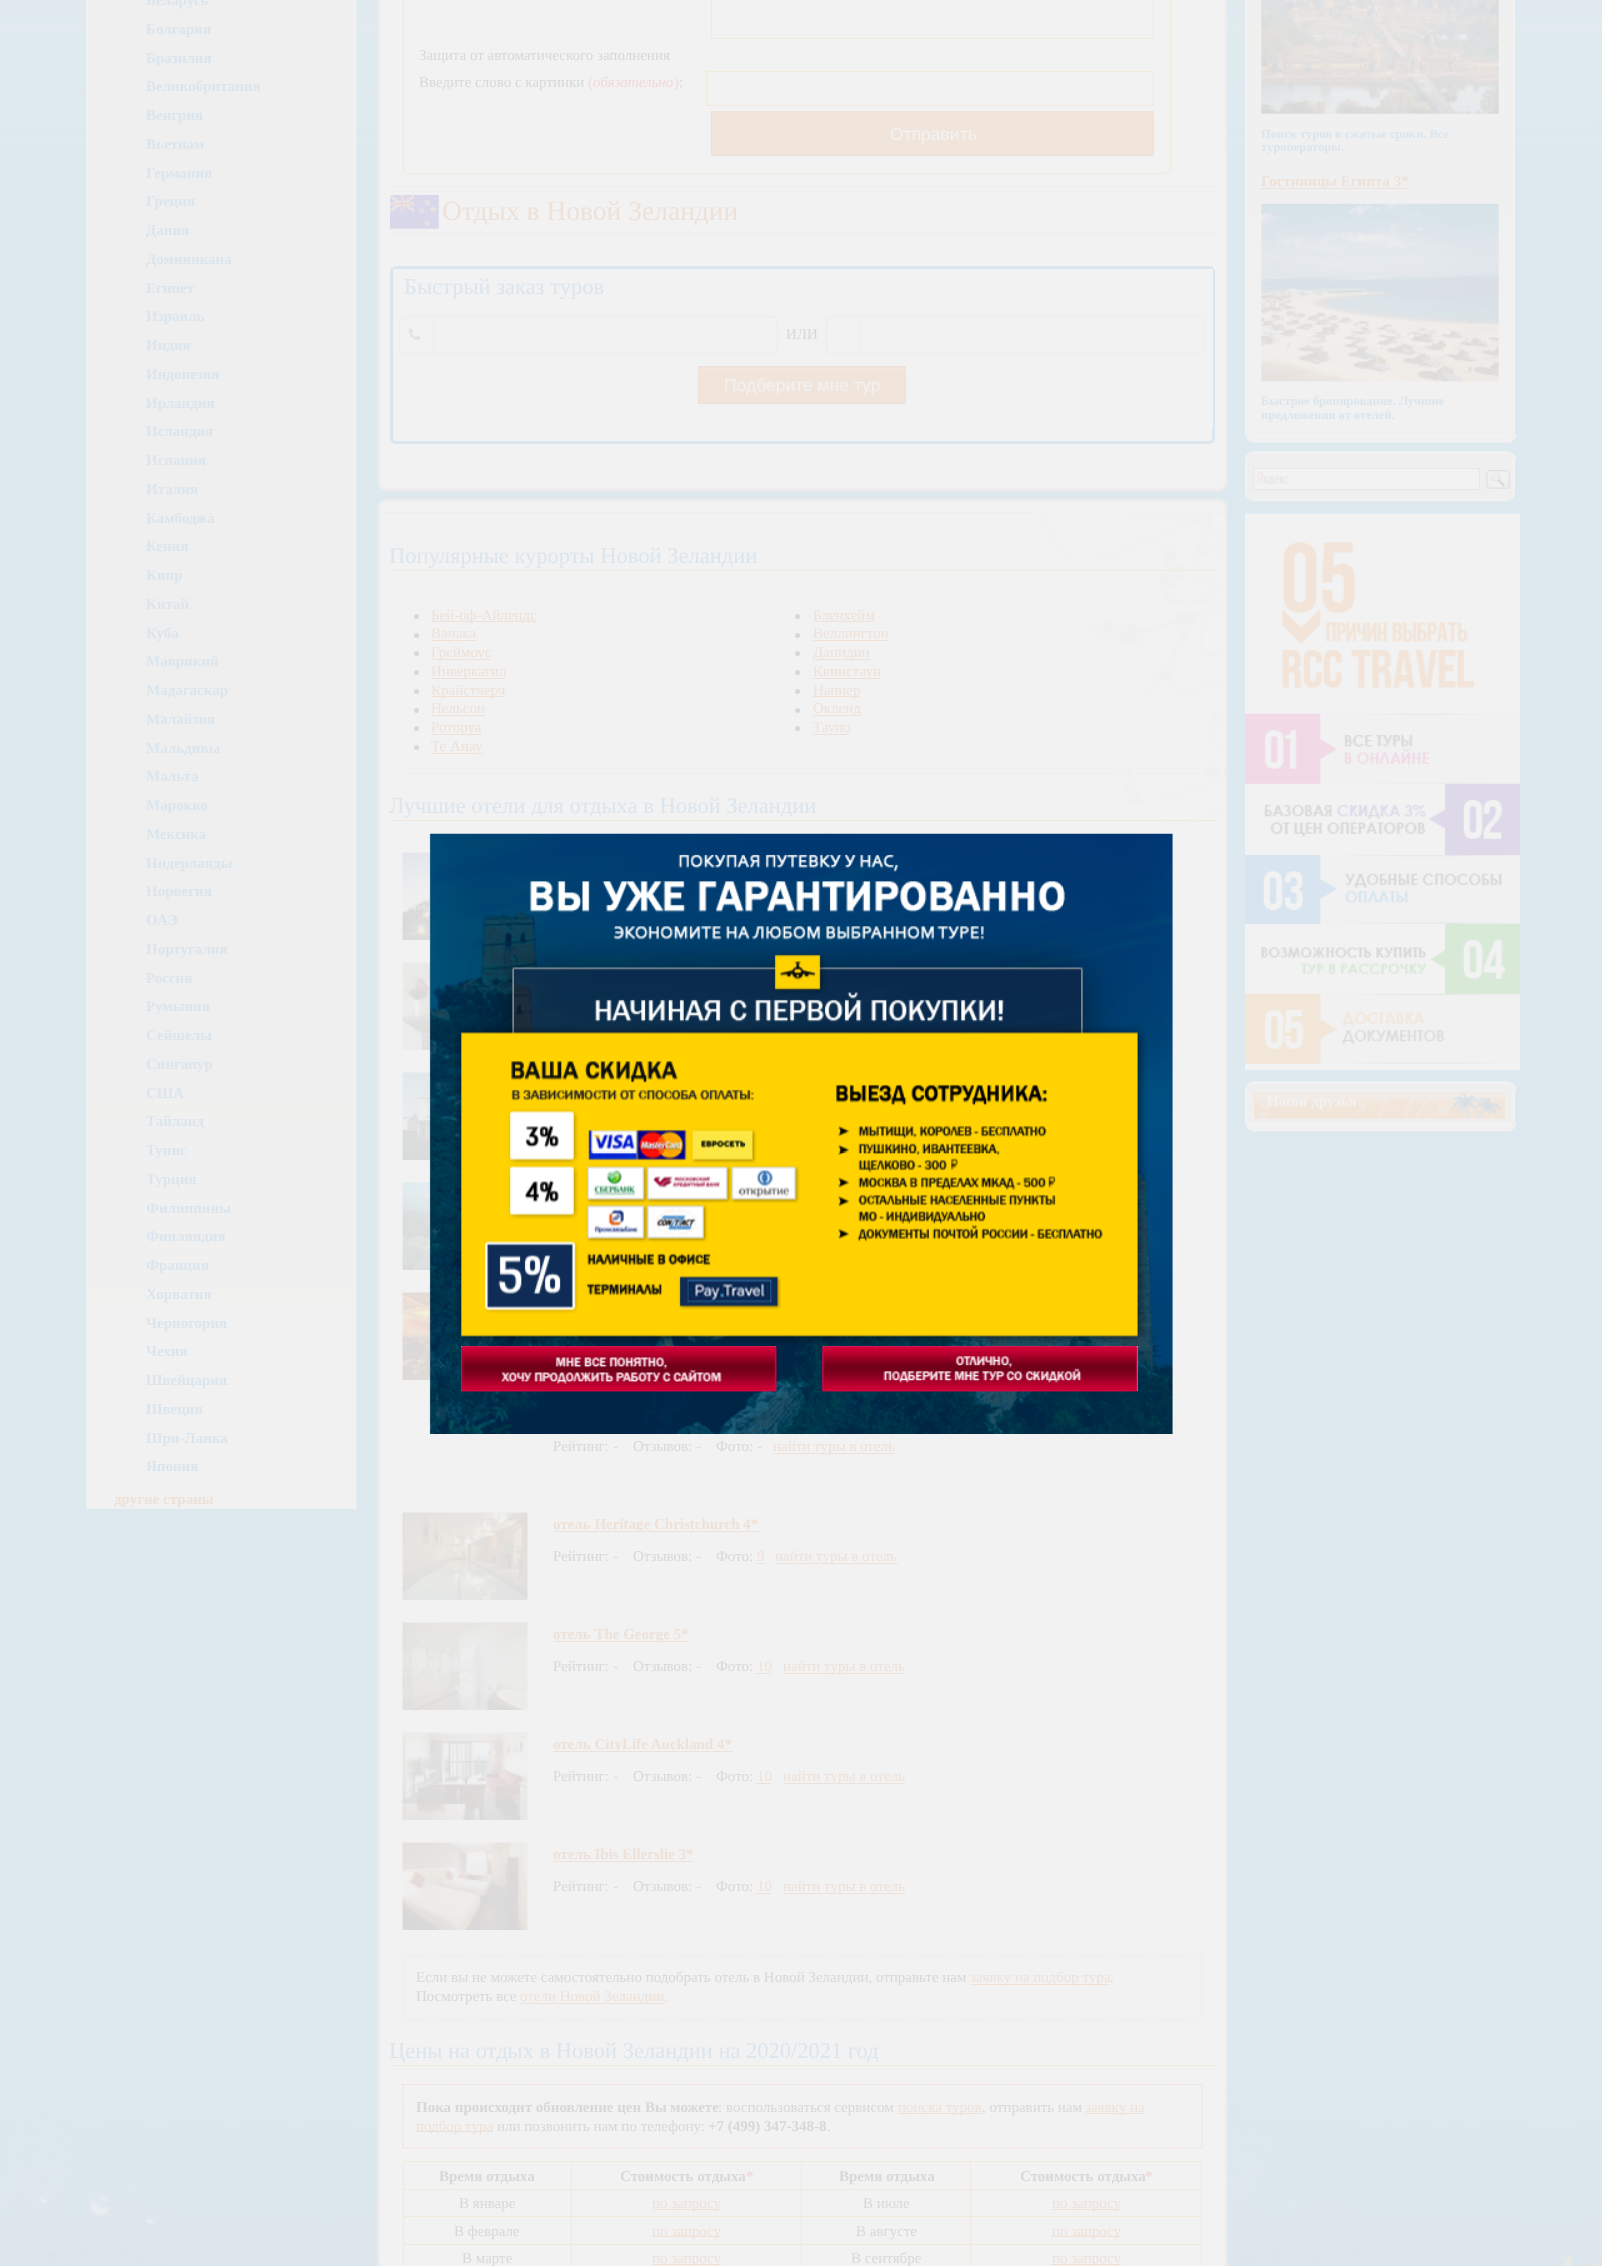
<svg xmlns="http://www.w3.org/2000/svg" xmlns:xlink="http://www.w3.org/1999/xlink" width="1602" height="2266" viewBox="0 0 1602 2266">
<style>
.cls-1{font:bold 15px Liberation Serif;fill:#dbe5ed}
.cls-2{font:bold 15px Liberation Serif;fill:#ede1d8}
.cls-3{font:15px Liberation Serif;fill:#d8d8d8}
.cls-4{font:15px Liberation Serif;fill:#f2d8d8}
.cls-5{font:italic 15px Liberation Serif;fill:#f2d8d8}
.cls-6{font:17.5px Liberation Sans;fill:#f2f2f2}
.cls-7{font:27.5px Liberation Serif;fill:#ede1d8}
.cls-8{font:22.5px Liberation Serif;fill:#dbe5ed}
.cls-9{font:15px Liberation Serif;fill:#ede1d8}
.cls-10{font:15px Liberation Serif;fill:#ecd8d8}
.cls-11{font:bold 15px Liberation Serif;fill:#d8d8d8}
.cls-12{font:bold 15px Liberation Serif;fill:#f2d8d8}
.cls-13{font:bold 12.5px Liberation Serif;fill:#dbe5ed}
.cls-14{font:bold 15px Liberation Serif;fill:#f2f2f2}
</style>
<rect width="100%" height="100%" fill="#dde9ef"/>
<image xlink:href="image0.png" x="0" y="2026" width="1602" height="240"/>
<image xlink:href="image1.png" x="0" y="0" width="1602" height="148"/>
<image xlink:href="image2.png" x="86" y="0" width="271" height="1509"/>
<image xlink:href="image3.png" x="90" y="1026" width="263" height="483"/>
<image xlink:href="image4.png" x="138" y="1379" width="203" height="8"/>
<image xlink:href="image5.png" x="112" y="1379" width="20" height="8"/>
<image xlink:href="image6.png" x="377" y="0" width="851" height="482"/>
<rect fill="none" stroke="#f1e9dc" x="403.5" y="-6.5" width="767" height="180" rx="5.5"/>
<rect fill="none" stroke="#f1e9dc" x="711.5" y="-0.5" width="442" height="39"/>
<rect fill="none" stroke="#f1e9dc" x="706.5" y="71.5" width="447" height="34"/>
<rect fill="#f1e5db" x="712" y="112" width="441" height="43"/>
<rect fill="#f1e8e0" x="713" y="113" width="440" height="1"/>
<rect fill="none" stroke="#ede0d8" x="711.5" y="111.5" width="442" height="44"/>
<image xlink:href="image7.png" x="390" y="186" width="824" height="2"/>
<image xlink:href="image8.png" x="390" y="195" width="49" height="34"/>
<image xlink:href="image9.png" x="390" y="232" width="824" height="2"/>
<rect fill="none" stroke="#dbe5ed" stroke-width="3" x="391.5" y="267.5" width="822" height="175" rx="4.5"/>
<rect fill="#f2f2f2" x="393" y="269" width="820" height="160"/>
<rect fill="none" stroke="#ececec" x="399.5" y="316.5" width="378" height="37" rx="5.5"/>
<rect fill="#ececec" x="433" y="318" width="1" height="35"/>
<image xlink:href="image10.png" x="408" y="328" width="13" height="12"/>
<rect fill="none" stroke="#ececec" x="826.5" y="316.5" width="378" height="37" rx="5.5"/>
<rect fill="#ececec" x="860" y="318" width="1" height="35"/>
<rect fill="#f1e5db" x="699" y="367" width="206" height="36"/>
<rect fill="#f1e8e0" x="699" y="368" width="206" height="1"/>
<rect fill="none" stroke="#ede0d8" x="698.5" y="366.5" width="207" height="37"/>
<image xlink:href="image11.png" x="377" y="481" width="851" height="11"/>
<image xlink:href="image12.png" x="377" y="498" width="851" height="15"/>
<image xlink:href="image13.png" x="377" y="512" width="851" height="1754"/>
<image xlink:href="image14.png" x="1035" y="512" width="189" height="313"/>
<rect fill="#f1e9dc" x="390" y="570" width="825" height="1"/>
<circle fill="#d8d8d8" cx="416.5" cy="616.5" r="2.5"/>
<rect fill="#ede1d8" x="431" y="621" width="105" height="1"/>
<circle fill="#d8d8d8" cx="797.5" cy="616.5" r="2.5"/>
<rect fill="#ede1d8" x="813" y="621" width="62" height="1"/>
<circle fill="#d8d8d8" cx="416.5" cy="635.5" r="2.5"/>
<rect fill="#ede1d8" x="431" y="640" width="45" height="1"/>
<circle fill="#d8d8d8" cx="797.5" cy="635.5" r="2.5"/>
<rect fill="#ede1d8" x="813" y="640" width="76" height="1"/>
<circle fill="#d8d8d8" cx="416.5" cy="653.5" r="2.5"/>
<rect fill="#ede1d8" x="431" y="659" width="60" height="1"/>
<circle fill="#d8d8d8" cx="797.5" cy="653.5" r="2.5"/>
<rect fill="#ede1d8" x="813" y="659" width="57" height="1"/>
<circle fill="#d8d8d8" cx="416.5" cy="672.5" r="2.5"/>
<rect fill="#ede1d8" x="431" y="678" width="75" height="1"/>
<circle fill="#d8d8d8" cx="797.5" cy="672.5" r="2.5"/>
<rect fill="#ede1d8" x="813" y="678" width="68" height="1"/>
<circle fill="#d8d8d8" cx="416.5" cy="691.5" r="2.5"/>
<rect fill="#ede1d8" x="431" y="696" width="74" height="1"/>
<circle fill="#d8d8d8" cx="797.5" cy="691.5" r="2.5"/>
<rect fill="#ede1d8" x="813" y="696" width="47" height="1"/>
<circle fill="#d8d8d8" cx="416.5" cy="710.5" r="2.5"/>
<rect fill="#ede1d8" x="431" y="715" width="54" height="1"/>
<circle fill="#d8d8d8" cx="797.5" cy="710.5" r="2.5"/>
<rect fill="#ede1d8" x="813" y="715" width="48" height="1"/>
<circle fill="#d8d8d8" cx="416.5" cy="728.5" r="2.5"/>
<rect fill="#ede1d8" x="431" y="734" width="50" height="1"/>
<circle fill="#d8d8d8" cx="797.5" cy="728.5" r="2.5"/>
<rect fill="#ede1d8" x="813" y="734" width="37" height="1"/>
<circle fill="#d8d8d8" cx="416.5" cy="747.5" r="2.5"/>
<rect fill="#ede1d8" x="431" y="753" width="52" height="1"/>
<image xlink:href="image15.png" x="402" y="772" width="826" height="2"/>
<rect fill="#f1e9dc" x="390" y="820" width="825" height="1"/>
<image xlink:href="image16.png" x="402" y="852" width="29" height="88"/>
<image xlink:href="image17.png" x="402" y="962" width="29" height="88"/>
<image xlink:href="image18.png" x="402" y="1072" width="29" height="88"/>
<image xlink:href="image19.png" x="402" y="1182" width="29" height="88"/>
<image xlink:href="image20.png" x="402" y="1292" width="29" height="88"/>
<rect fill="#ede1d8" x="773" y="1453" width="122" height="1"/>
<image xlink:href="image21.png" x="402" y="1512" width="126" height="88"/>
<rect fill="#ede1d8" x="554" y="1531" width="205" height="1"/>
<rect fill="#ede1d8" x="756" y="1563" width="8" height="1"/>
<rect fill="#ede1d8" x="775" y="1563" width="123" height="1"/>
<image xlink:href="image22.png" x="402" y="1622" width="126" height="88"/>
<rect fill="#ede1d8" x="554" y="1641" width="135" height="1"/>
<rect fill="#ede1d8" x="756" y="1673" width="15" height="1"/>
<rect fill="#ede1d8" x="783" y="1673" width="122" height="1"/>
<image xlink:href="image23.png" x="402" y="1732" width="126" height="88"/>
<rect fill="#ede1d8" x="554" y="1751" width="179" height="1"/>
<rect fill="#ede1d8" x="756" y="1783" width="15" height="1"/>
<rect fill="#ede1d8" x="783" y="1783" width="122" height="1"/>
<image xlink:href="image24.png" x="402" y="1842" width="126" height="88"/>
<rect fill="#ede1d8" x="554" y="1861" width="140" height="1"/>
<rect fill="#ede1d8" x="756" y="1893" width="15" height="1"/>
<rect fill="#ede1d8" x="783" y="1893" width="122" height="1"/>
<path fill="none" stroke="#f1e9dc" stroke-width="1.2" stroke-dasharray="1.25 1.25" d="M402.5 1955.5H1202.5"/>
<path fill="none" stroke="#f1e9dc" stroke-width="1.2" stroke-dasharray="1.25 1.25" d="M1202 1955V2020"/>
<path fill="none" stroke="#f1e9dc" stroke-width="1.2" stroke-dasharray="1.25 1.25" d="M402.5 2019.5H1202.5"/>
<path fill="none" stroke="#f1e9dc" stroke-width="1.2" stroke-dasharray="1.25 1.25" d="M403 1955V2020"/>
<rect fill="#ede1d8" x="970" y="1984" width="140" height="1"/>
<rect fill="#ede1d8" x="520" y="2003" width="145" height="1"/>
<rect fill="#f1e9dc" x="390" y="2065" width="825" height="1"/>
<path fill="none" stroke="#f2d8d8" stroke-width="1.2" stroke-dasharray="1.25 1.25" d="M402.5 2084.5H1202.5"/>
<path fill="none" stroke="#f2d8d8" stroke-width="1.2" stroke-dasharray="1.25 1.25" d="M1202 2084V2149"/>
<path fill="none" stroke="#f2d8d8" stroke-width="1.2" stroke-dasharray="1.25 1.25" d="M402.5 2148H1202.5"/>
<path fill="none" stroke="#f2d8d8" stroke-width="1.2" stroke-dasharray="1.25 1.25" d="M403 2084V2149"/>
<rect fill="#ede1d8" x="898" y="2113" width="83" height="1"/>
<rect fill="#ede1d8" x="1085" y="2113" width="60" height="1"/>
<rect fill="#ede1d8" x="416" y="2131" width="77" height="1"/>
<rect fill="#f1e9dc" x="403" y="2161" width="800" height="1"/>
<rect fill="#f1e9dc" x="1201" y="2161" width="1" height="105"/>
<rect fill="#f1e9dc" x="403" y="2161" width="1" height="105"/>
<rect fill="#f1e9dc" x="970" y="2189" width="233" height="1"/>
<rect fill="#f1e9dc" x="970" y="2216" width="233" height="1"/>
<rect fill="#f1e9dc" x="970" y="2244" width="233" height="1"/>
<rect fill="#f1e9dc" x="970" y="2244" width="1" height="22"/>
<rect fill="#f1e9dc" x="801" y="2244" width="170" height="1"/>
<rect fill="#f1e9dc" x="970" y="2216" width="1" height="29"/>
<rect fill="#f1e9dc" x="801" y="2216" width="170" height="1"/>
<rect fill="#f1e9dc" x="970" y="2189" width="1" height="29"/>
<rect fill="#f1e9dc" x="801" y="2189" width="170" height="1"/>
<rect fill="#f1e9dc" x="801" y="2244" width="1" height="22"/>
<rect fill="#f1e9dc" x="571" y="2244" width="232" height="1"/>
<rect fill="#f1e9dc" x="801" y="2216" width="1" height="29"/>
<rect fill="#f1e9dc" x="571" y="2216" width="232" height="1"/>
<rect fill="#f1e9dc" x="801" y="2189" width="1" height="29"/>
<rect fill="#f1e9dc" x="571" y="2189" width="232" height="1"/>
<rect fill="#f1e9dc" x="571" y="2244" width="1" height="22"/>
<rect fill="#f1e9dc" x="403" y="2244" width="170" height="1"/>
<rect fill="#f1e9dc" x="571" y="2216" width="1" height="29"/>
<rect fill="#f1e9dc" x="403" y="2216" width="170" height="1"/>
<rect fill="#f1e9dc" x="571" y="2189" width="1" height="29"/>
<rect fill="#f1e9dc" x="403" y="2189" width="170" height="1"/>
<rect fill="#f1e9dc" x="571" y="2161" width="1" height="29"/>
<rect fill="#f1e9dc" x="801" y="2161" width="1" height="29"/>
<rect fill="#f1e9dc" x="970" y="2161" width="1" height="29"/>
<rect fill="#ede1d8" x="653" y="2209" width="68" height="1"/>
<rect fill="#ede1d8" x="1051" y="2209" width="70" height="1"/>
<rect fill="#ede1d8" x="653" y="2236" width="68" height="1"/>
<rect fill="#ede1d8" x="1051" y="2236" width="70" height="1"/>
<rect fill="#ede1d8" x="653" y="2264" width="68" height="1"/>
<rect fill="#ede1d8" x="1051" y="2264" width="70" height="1"/>
<image xlink:href="image25.png" x="1245" y="0" width="271" height="434"/>
<image xlink:href="image26.png" x="1248" y="0" width="264" height="434"/>
<image xlink:href="image27.png" x="1261" y="0" width="238" height="114"/>
<rect fill="#ede1d8" x="1261" y="188" width="148" height="1"/>
<image xlink:href="image28.png" x="1261" y="203" width="238" height="179"/>
<image xlink:href="image29.png" x="1245" y="433" width="272" height="10"/>
<image xlink:href="image30.png" x="1245" y="451" width="272" height="9"/>
<image xlink:href="image31.png" x="1245" y="460" width="271" height="29"/>
<image xlink:href="image34.png" x="1245" y="488" width="271" height="14"/>
<rect fill="#f2f2f2" x="1254" y="469" width="225" height="20"/>
<image xlink:href="image32.png" x="1256" y="472" width="33" height="14"/>
<rect fill="none" stroke="#e5e8eb" x="1253.5" y="468.5" width="226" height="21"/>
<image xlink:href="image33.png" x="1486" y="470" width="24" height="19"/>
<image xlink:href="image35.png" x="1245" y="513" width="275" height="557"/>
<image xlink:href="image30.png" x="1245" y="1081" width="272" height="9"/>
<image xlink:href="image36.png" x="1245" y="1090" width="271" height="33"/>
<rect fill="#f1f1f1" x="1248" y="1122" width="264" height="1"/>
<image xlink:href="image37.png" x="1253" y="1092" width="253" height="27"/>
<image xlink:href="image38.png" x="1245" y="1122" width="272" height="10"/>
<image xlink:href="image39.png" x="429" y="833" width="744" height="601"/>
<image xlink:href="image40.png" x="454" y="854" width="693" height="491"/>
<rect fill="#efefef" x="461" y="1346" width="315" height="45"/>
<image xlink:href="image41.png" x="461" y="1346" width="316" height="46"/>
<image xlink:href="image42.png" x="461" y="1346" width="316" height="46"/>
<rect fill="#efefef" x="823" y="1346" width="315" height="45"/>
<image xlink:href="image43.png" x="822" y="1346" width="316" height="46"/>
<image xlink:href="image44.png" x="822" y="1346" width="316" height="46"/>
<text class="cls-1"><tspan x="146" y="5">Беларусь</tspan><tspan x="146" y="34">Болгария</tspan><tspan x="146" y="63">Бразилия</tspan><tspan x="146" y="91">Великобритания</tspan><tspan x="146" y="120">Венгрия</tspan><tspan x="146" y="149">Вьетнам</tspan><tspan x="146" y="178">Германия</tspan><tspan x="146" y="206">Греция</tspan><tspan x="146" y="235">Дания</tspan><tspan x="146" y="264">Доминикана</tspan><tspan x="146" y="293">Египет</tspan><tspan x="146" y="321">Израиль</tspan><tspan x="146" y="350">Индия</tspan><tspan x="146" y="379">Индонезия</tspan><tspan x="146" y="408">Ирландия</tspan><tspan x="146" y="436">Исландия</tspan><tspan x="146" y="465">Испания</tspan><tspan x="146" y="494">Италия</tspan><tspan x="146" y="523">Камбоджа</tspan><tspan x="146" y="551">Кения</tspan><tspan x="146" y="580">Кипр</tspan><tspan x="146" y="609">Китай</tspan><tspan x="146" y="638">Куба</tspan><tspan x="146" y="666">Маврикий</tspan><tspan x="146" y="695">Мадагаскар</tspan><tspan x="146" y="724">Малайзия</tspan><tspan x="146" y="753">Мальдивы</tspan><tspan x="146" y="781">Мальта</tspan><tspan x="146" y="810">Марокко</tspan><tspan x="146" y="839">Мексика</tspan><tspan x="146" y="868">Нидерланды</tspan><tspan x="146" y="896">Норвегия</tspan><tspan x="146" y="925">ОАЭ</tspan><tspan x="146" y="954">Португалия</tspan><tspan x="146" y="983">Россия</tspan><tspan x="146" y="1011">Румыния</tspan><tspan x="146" y="1040">Сейшелы</tspan><tspan x="146" y="1069">Сингапур</tspan><tspan x="146" y="1098">США</tspan><tspan x="146" y="1126">Тайланд</tspan><tspan x="146" y="1155">Тунис</tspan><tspan x="146" y="1184">Турция</tspan><tspan x="146" y="1213">Филиппины</tspan><tspan x="146" y="1241">Финляндия</tspan><tspan x="146" y="1270">Франция</tspan><tspan x="146" y="1299">Хорватия</tspan><tspan x="146" y="1328">Черногория</tspan><tspan x="146" y="1356">Чехия</tspan><tspan x="146" y="1385">Швейцария</tspan><tspan x="146" y="1414">Швеция</tspan><tspan x="146" y="1443">Шри-Ланка</tspan><tspan x="146" y="1471">Япония</tspan></text>
<text class="cls-2" x="114" y="1504">другие страны</text>
<text class="cls-3"><tspan x="419" y="60">Защита от автоматического заполнения</tspan><tspan x="419" y="87">Введите слово с картинки</tspan></text>
<text class="cls-4" x="588" y="87">(</text>
<text class="cls-5" x="593" y="87">обязательно</text>
<text class="cls-4" x="674" y="87">)</text>
<text class="cls-3" x="679" y="87">:</text>
<text class="cls-6" x="890" y="140">Отправить</text>
<text class="cls-7" x="442" y="220">Отдых в Новой Зеландии</text>
<text class="cls-8" x="404" y="294">Быстрый заказ туров</text>
<text class="cls-3" x="786" y="339">ИЛИ</text>
<text class="cls-6" x="724" y="391">Подберите мне тур</text>
<text class="cls-8" x="389" y="563">Популярные курорты Новой Зеландии</text>
<text class="cls-9" x="431" y="620">Бей-оф-Айлендс</text>
<text class="cls-9" x="813" y="620">Бленхейм</text>
<text class="cls-9" x="431" y="638">Ванака</text>
<text class="cls-9" x="813" y="638">Веллингтон</text>
<text class="cls-9" x="431" y="657">Греймоус</text>
<text class="cls-9" x="813" y="657">Данидин</text>
<text class="cls-9" x="431" y="676">Инверкагил</text>
<text class="cls-9" x="813" y="676">Квинстаун</text>
<text class="cls-9" x="431" y="695">Крайстчерч</text>
<text class="cls-9" x="813" y="695">Напиер</text>
<text class="cls-9" x="431" y="713">Нельсон</text>
<text class="cls-9" x="813" y="713">Окленд</text>
<text class="cls-9" x="431" y="732">Роторуа</text>
<text class="cls-9" x="813" y="732">Таупо</text>
<text class="cls-9" x="431" y="751">Те Анау</text>
<text class="cls-8" x="389" y="813">Лучшие отели для отдыха в Новой Зеландии</text>
<text class="cls-3" x="553" y="1451">Рейтинг:</text>
<text class="cls-10" x="613" y="1451">-</text>
<text class="cls-3" x="633" y="1451">Отзывов:</text>
<text class="cls-10" x="696" y="1451">-</text>
<text class="cls-3" x="716" y="1451">Фото:</text>
<text class="cls-10" x="757" y="1451">-</text>
<text class="cls-9" x="773" y="1451">найти туры в отель</text>
<text class="cls-2" x="553" y="1529">отель Heritage Christchurch 4*</text>
<text class="cls-3" x="553" y="1561">Рейтинг:</text>
<text class="cls-10" x="613" y="1561">-</text>
<text class="cls-3" x="633" y="1561">Отзывов:</text>
<text class="cls-10" x="696" y="1561">-</text>
<text class="cls-3" x="716" y="1561">Фото:</text>
<text class="cls-9" x="757" y="1561">9</text>
<text class="cls-9" x="775" y="1561">найти туры в отель</text>
<text class="cls-2" x="553" y="1639">отель The George 5*</text>
<text class="cls-3" x="553" y="1671">Рейтинг:</text>
<text class="cls-10" x="613" y="1671">-</text>
<text class="cls-3" x="633" y="1671">Отзывов:</text>
<text class="cls-10" x="696" y="1671">-</text>
<text class="cls-3" x="716" y="1671">Фото:</text>
<text class="cls-9" x="757" y="1671">10</text>
<text class="cls-9" x="783" y="1671">найти туры в отель</text>
<text class="cls-2" x="553" y="1749">отель CityLife Auckland 4*</text>
<text class="cls-3" x="553" y="1781">Рейтинг:</text>
<text class="cls-10" x="613" y="1781">-</text>
<text class="cls-3" x="633" y="1781">Отзывов:</text>
<text class="cls-10" x="696" y="1781">-</text>
<text class="cls-3" x="716" y="1781">Фото:</text>
<text class="cls-9" x="757" y="1781">10</text>
<text class="cls-9" x="783" y="1781">найти туры в отель</text>
<text class="cls-2" x="553" y="1859">отель Ibis Ellerslie 3*</text>
<text class="cls-3" x="553" y="1891">Рейтинг:</text>
<text class="cls-10" x="613" y="1891">-</text>
<text class="cls-3" x="633" y="1891">Отзывов:</text>
<text class="cls-10" x="696" y="1891">-</text>
<text class="cls-3" x="716" y="1891">Фото:</text>
<text class="cls-9" x="757" y="1891">10</text>
<text class="cls-9" x="783" y="1891">найти туры в отель</text>
<text class="cls-3" x="416" y="1982">Если вы не можете самостоятельно подобрать отель в Новой Зеландии, отправьте нам</text>
<text class="cls-9" x="970" y="1982">заявку на подбор тура</text>
<text class="cls-3" x="1110" y="1982">.</text>
<text class="cls-3" x="416" y="2001">Посмотреть все</text>
<text class="cls-9" x="520" y="2001">отели Новой Зеландии</text>
<text class="cls-3" x="664" y="2001">.</text>
<text class="cls-8" x="389" y="2058">Цены на отдых в Новой Зеландии на 2020/2021 год</text>
<text class="cls-11" x="416" y="2112">Пока происходит обновление цен Вы можете</text>
<text class="cls-3" x="718" y="2112">: воспользоваться сервисом</text>
<text class="cls-9" x="898" y="2112">поиска туров</text>
<text class="cls-3" x="982" y="2112">, отправить нам</text>
<text class="cls-9" x="1085" y="2112">заявку на</text>
<text class="cls-9" x="416" y="2131">подбор тура</text>
<text class="cls-3" x="497" y="2131">или позвонить нам по телефону:</text>
<text class="cls-11" x="708" y="2131">+7 (499) 347-348-8</text>
<text class="cls-3" x="827" y="2131">.</text>
<text class="cls-11" x="439" y="2181">Время отдыха</text>
<text class="cls-11" x="620" y="2181">Стоимость отдыха</text>
<text class="cls-12" x="746" y="2181">*</text>
<text class="cls-11" x="839" y="2181">Время отдыха</text>
<text class="cls-11" x="1020" y="2181">Стоимость отдыха</text>
<text class="cls-12" x="1145" y="2181">*</text>
<text class="cls-3" x="459" y="2208">В январе</text>
<text class="cls-9" x="652" y="2208">по запросу</text>
<text class="cls-3" x="863" y="2208">В июле</text>
<text class="cls-9" x="1052" y="2208">по запросу</text>
<text class="cls-3" x="454" y="2236">В феврале</text>
<text class="cls-9" x="652" y="2236">по запросу</text>
<text class="cls-3" x="856" y="2236">В августе</text>
<text class="cls-9" x="1052" y="2236">по запросу</text>
<text class="cls-3" x="462" y="2263">В марте</text>
<text class="cls-9" x="652" y="2263">по запросу</text>
<text class="cls-3" x="851" y="2263">В сентябре</text>
<text class="cls-9" x="1052" y="2263">по запросу</text>
<text class="cls-13"><tspan x="1261" y="138">Поиск туров в сжатые сроки. Все</tspan><tspan x="1261" y="151">туроператоры.</tspan></text>
<text class="cls-2" x="1261" y="186">Гостиницы Египта 3*</text>
<text class="cls-13"><tspan x="1261" y="405">Быстрое бронирование. Лучшие</tspan><tspan x="1261" y="419">предложения от отелей.</tspan></text>
<text class="cls-14" x="1267" y="1106">Наши друзья</text>
</svg>
